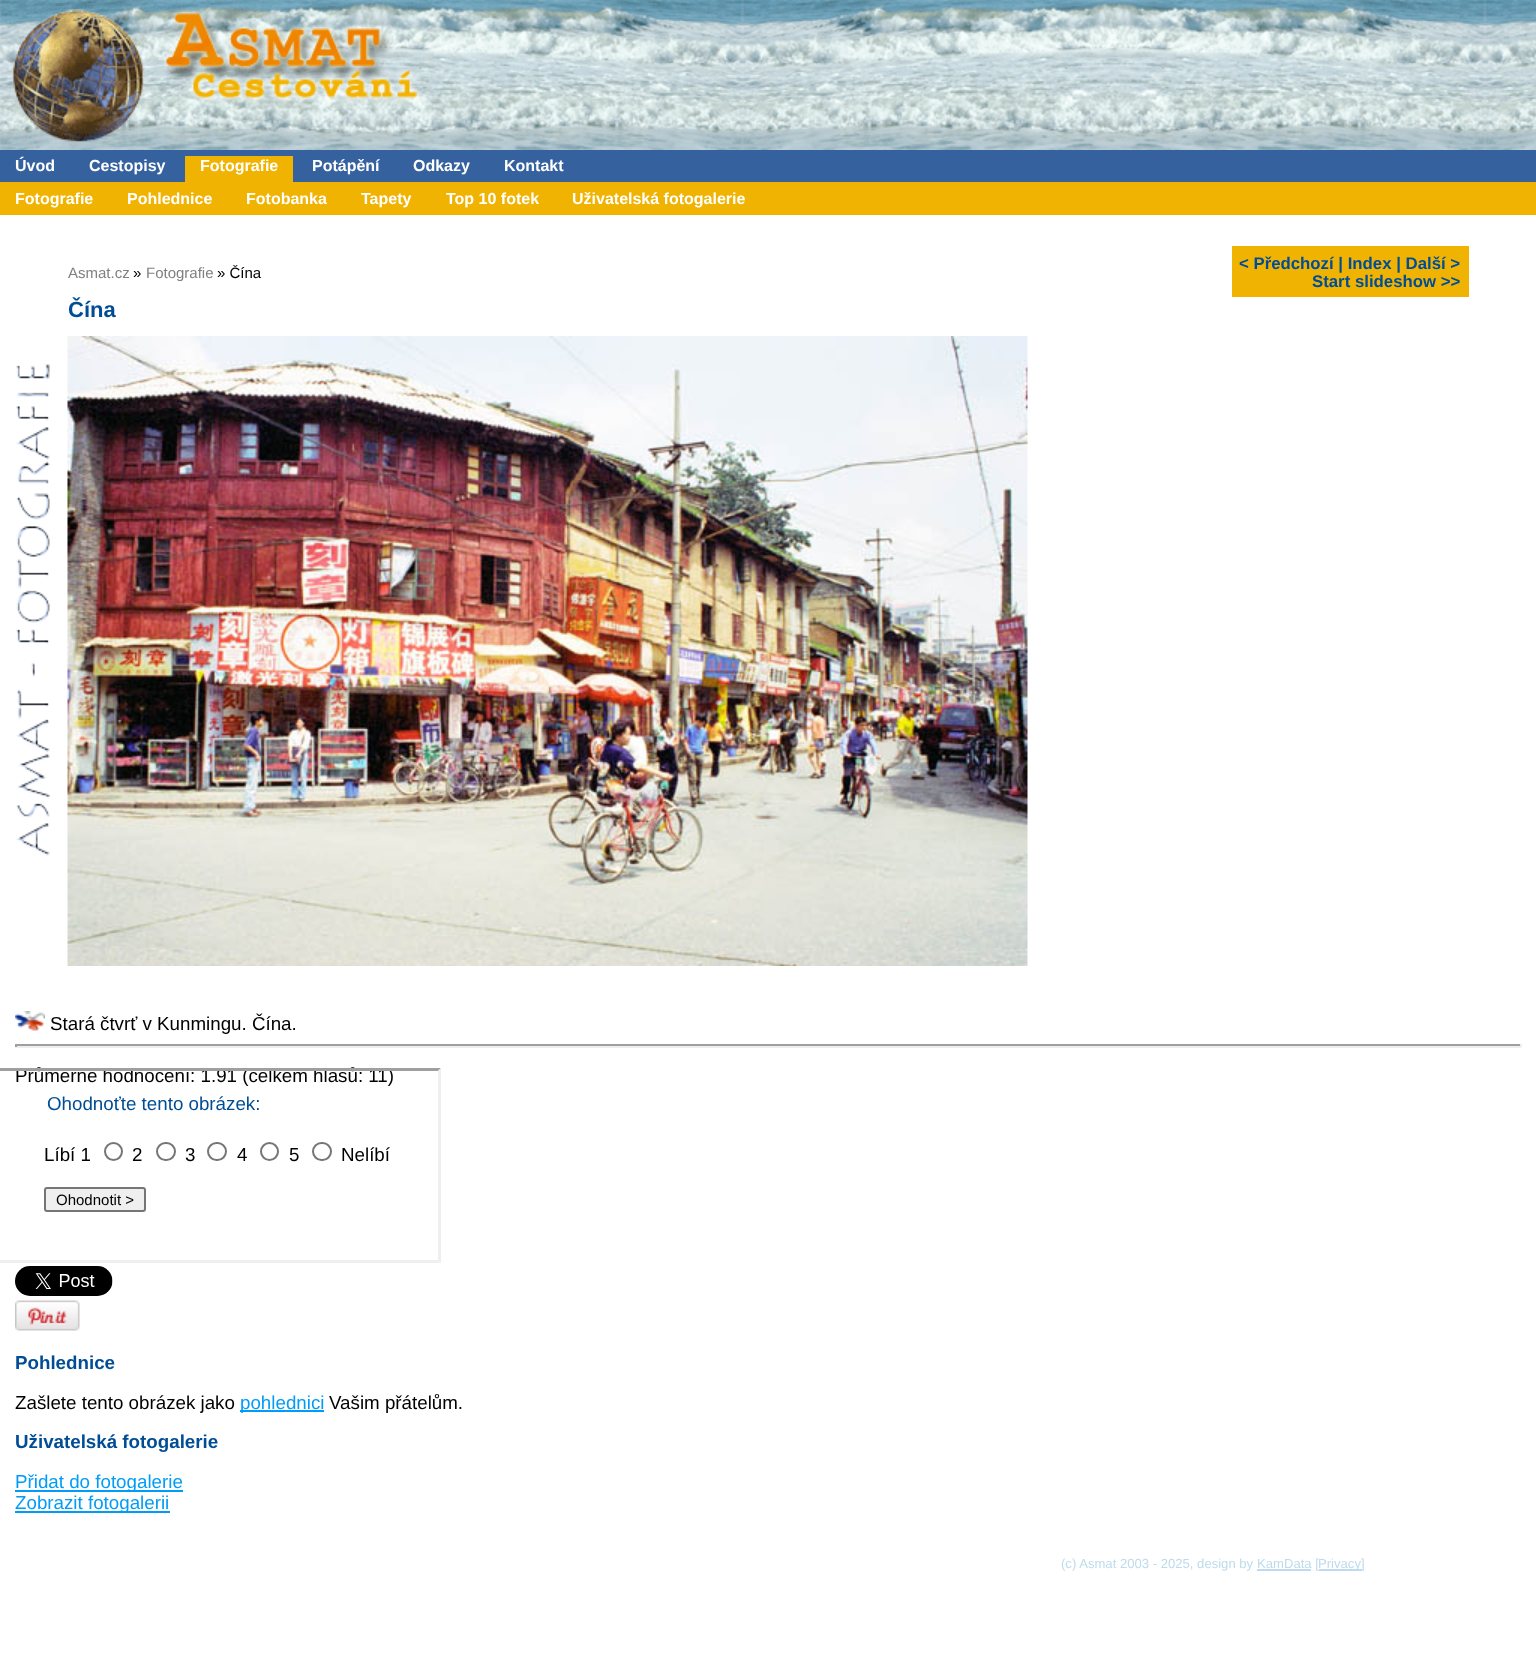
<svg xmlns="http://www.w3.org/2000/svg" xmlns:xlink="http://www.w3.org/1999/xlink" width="1536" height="1663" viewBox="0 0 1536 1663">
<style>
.cls-1{font:bold 16px Liberation Sans;fill:#ffffff}
.cls-2{font:15px Liberation Sans;fill:#808080}
.cls-3{font:15px Liberation Sans;fill:#000000}
.cls-4{font:bold 22px Liberation Sans;fill:#004d96}
.cls-5{font:bold 16.8px Liberation Sans;fill:#004d96}
.cls-6{font:18.75px Liberation Sans;fill:#000000}
.cls-7{font:18.75px Liberation Sans;fill:#004d96}
.cls-8{font:bold 18.75px Liberation Sans;fill:#004d96}
.cls-9{font:18.75px Liberation Sans;fill:#009cf7}
.cls-10{font:13.1px Liberation Sans;fill:#bddbec}
</style>
<rect width="100%" height="100%" fill="#ffffff"/>
<rect fill="#35629f" x="0" y="150" width="1536" height="32"/>
<image xlink:href="image0.png" x="427" y="0" width="1109" height="150"/>
<image xlink:href="image1.png" x="0" y="0" width="428" height="150"/>
<rect fill="#f1b302" x="185" y="156" width="108" height="26"/>
<rect fill="#f1b302" x="0" y="182" width="1536" height="33"/>
<image xlink:href="image2.png" x="16" y="364" width="34" height="493"/>
<image xlink:href="image3.png" x="67" y="336" width="961" height="630"/>
<rect fill="#f1b302" x="1232" y="246" width="237" height="51"/>
<image xlink:href="image4.png" x="15" y="1011" width="30" height="20"/>
<rect fill="#9f9f9f" x="15" y="1044" width="1506" height="2"/>
<rect fill="#eeeeee" x="1520" y="1044" width="2" height="3"/>
<rect fill="#eeeeee" x="15" y="1046" width="1506" height="2"/>
<rect fill="#9f9f9f" x="15" y="1044" width="2" height="3"/>
<circle fill="none" stroke="#767676" stroke-width="2" cx="113.5" cy="1151.5" r="8.5"/>
<rect fill="none" stroke="#767676" stroke-width="2" x="157" y="1143" width="18" height="17" rx="8.5"/>
<rect fill="none" stroke="#767676" stroke-width="2" x="208" y="1143" width="18" height="17" rx="8.5"/>
<circle fill="none" stroke="#767676" stroke-width="2" cx="269.5" cy="1151.5" r="8.5"/>
<rect fill="none" stroke="#767676" stroke-width="2" x="313" y="1143" width="18" height="17" rx="8.5"/>
<rect fill="#efefef" stroke="#767676" stroke-width="2" x="45" y="1188" width="100" height="23" rx="2"/>
<image xlink:href="image5.png" x="15" y="1266" width="98" height="30"/>
<image xlink:href="image6.png" x="15" y="1300" width="65" height="31"/>
<rect fill="#009cf7" x="240" y="1410" width="84" height="2"/>
<rect fill="#009cf7" x="15" y="1490" width="168" height="2"/>
<rect fill="#009cf7" x="15" y="1511" width="155" height="2"/>
<rect fill="#bddbec" x="1257" y="1569" width="54" height="2"/>
<rect fill="#bddbec" x="1319" y="1569" width="43" height="2"/>
<text class="cls-1" x="15" y="171">Úvod</text>
<text class="cls-1" x="89" y="171">Cestopisy</text>
<text class="cls-1" x="200" y="171">Fotografie</text>
<text class="cls-1" x="312" y="171">Potápění</text>
<text class="cls-1" x="413" y="171">Odkazy</text>
<text class="cls-1" x="504" y="171">Kontakt</text>
<text class="cls-1" x="15" y="204">Fotografie</text>
<text class="cls-1" x="127" y="204">Pohlednice</text>
<text class="cls-1" x="246" y="204">Fotobanka</text>
<text class="cls-1" x="361" y="204">Tapety</text>
<text class="cls-1" x="446" y="204">Top 10 fotek</text>
<text class="cls-1" x="572" y="204">Uživatelská fotogalerie</text>
<text class="cls-2" x="68" y="278">Asmat.cz</text>
<text class="cls-3" x="133" y="278">»</text>
<text class="cls-2" x="146" y="278">Fotografie</text>
<text class="cls-3" x="217" y="278">» Čína</text>
<text class="cls-4" x="68" y="317">Čína</text>
<text class="cls-5" x="1239" y="269">&lt; Předchozí | Index | Další &gt;</text>
<text class="cls-5" x="1312" y="287">Start slideshow &gt;&gt;</text>
<text class="cls-6" x="50" y="1030">Stará čtvrť v Kunmingu. Čína.</text>
<text class="cls-6" x="15" y="1082">Průměrné hodnocení: 1.91 (celkem hlasů: 11)</text>
<path fill="#9f9f9f" d="M-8 1068H441L438 1071H-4Z"/>
<path fill="#efefef" d="M441 1068V1263L438 1260V1071Z"/>
<path fill="#efefef" d="M441 1263H-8L-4 1260H438Z"/>
<text class="cls-7" x="47" y="1110">Ohodnoťte tento obrázek:</text>
<text class="cls-6" x="44" y="1161">Líbí 1</text>
<text class="cls-6" x="132" y="1161">2</text>
<text class="cls-6" x="185" y="1161">3</text>
<text class="cls-6" x="237" y="1161">4</text>
<text class="cls-6" x="289" y="1161">5</text>
<text class="cls-6" x="341" y="1161">Nelíbí</text>
<text class="cls-3" x="56" y="1205">Ohodnotit &gt;</text>
<text class="cls-8" x="15" y="1369">Pohlednice</text>
<text class="cls-6" x="15" y="1409">Zašlete tento obrázek jako</text>
<text class="cls-9" x="240" y="1409">pohlednici</text>
<text class="cls-6" x="329" y="1409">Vašim přátelům.</text>
<text class="cls-8" x="15" y="1448">Uživatelská fotogalerie</text>
<text class="cls-9"><tspan x="15" y="1488">Přidat do fotogalerie</tspan><tspan x="15" y="1509">Zobrazit fotogalerii</tspan></text>
<text class="cls-10" x="1061" y="1568">(c) Asmat 2003 - 2025, design by</text>
<text class="cls-10" x="1257" y="1568">KamData [</text>
<text class="cls-10" x="1318" y="1568">Privacy]</text>
</svg>
